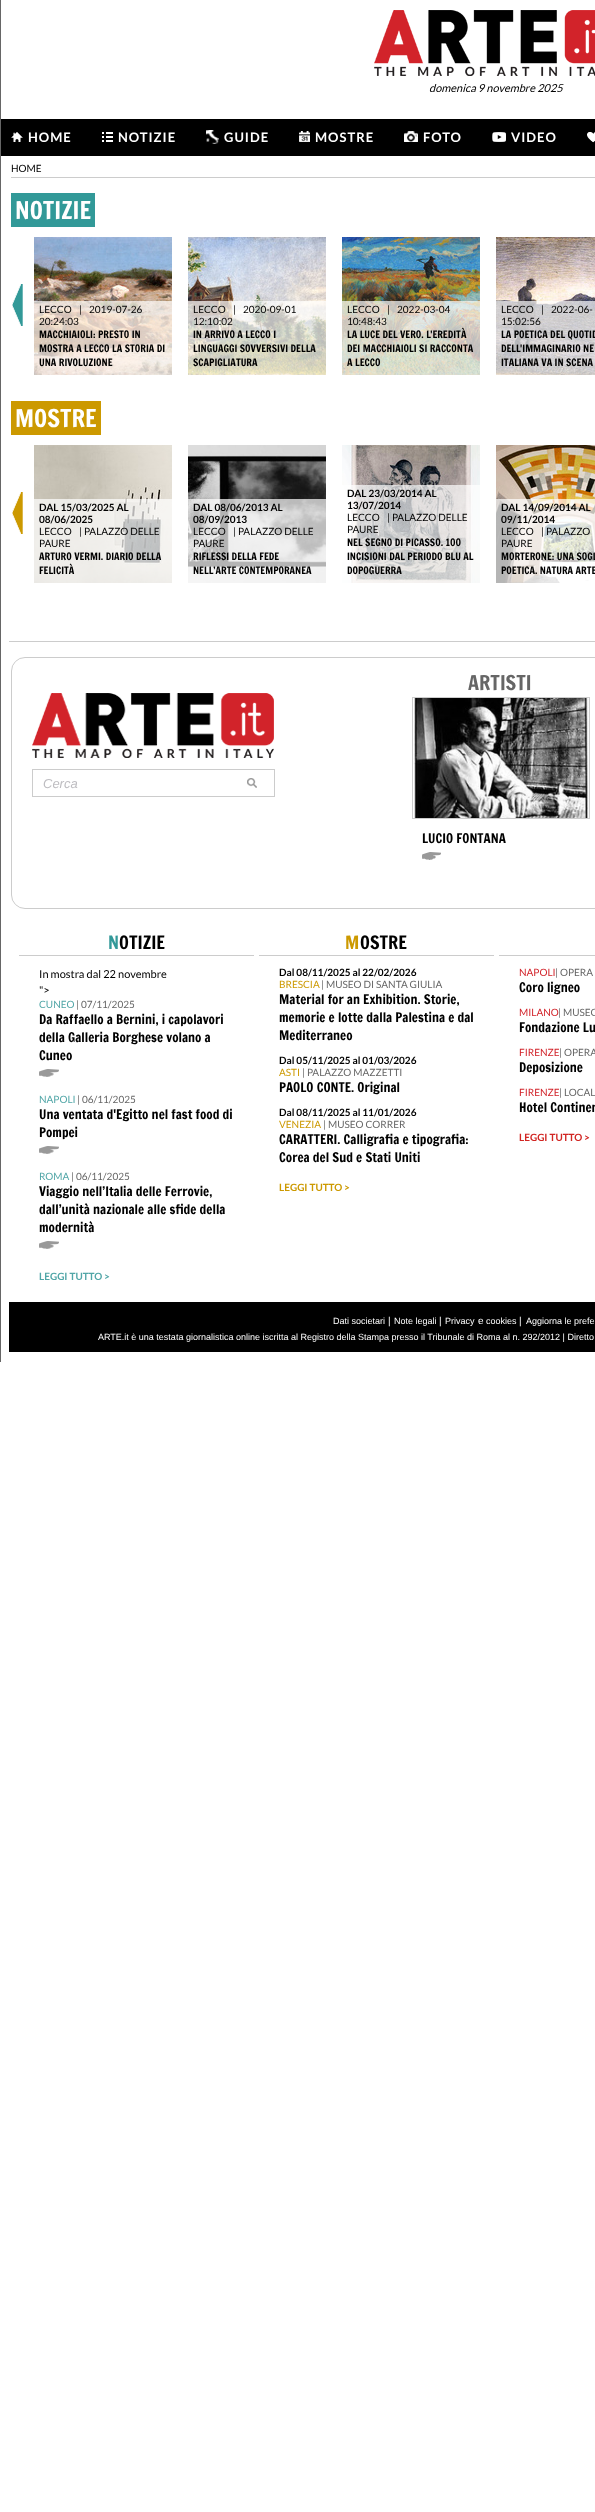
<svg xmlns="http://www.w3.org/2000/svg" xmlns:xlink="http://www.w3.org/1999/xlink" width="595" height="2512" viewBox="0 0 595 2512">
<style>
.cls-1{font:italic 11px Lato;fill:#000000}
.cls-2{font:bold 13px Lato;letter-spacing:1px;fill:#ffffff}
.cls-3{font:10px Lato;fill:#000000}
.cls-4{font:24px Francois One;fill:#ffffff}
.cls-5{font:10px Francois One;fill:#000000}
.cls-6{font:bold 10px Lato;fill:#000000}
.cls-7{font:italic 13px Liberation Sans;fill:#bebdc1}
.cls-8{font:20px Francois One;fill:#666666}
.cls-9{font:13px Francois One;fill:#000000}
.cls-10{font:18px Francois One;fill:#339999}
.cls-11{font:18px Francois One;fill:#000000}
.cls-12{font:11px Lato;fill:#000000}
.cls-13{font:10px Lato;fill:#51a6a7}
.cls-14{font:10px Lato;fill:#666666}
.cls-15{font:bold 10px Lato;fill:#51a6a7}
.cls-16{font:18px Francois One;fill:#cc9900}
.cls-17{font:10px Lato;fill:#cc9900}
.cls-18{font:bold 10px Lato;fill:#cc9900}
.cls-19{font:10px Lato;fill:#d2232a}
.cls-20{font:bold 10px Lato;fill:#d12522}
.cls-21{font:9px Liberation Sans;fill:#ffffff}
.cls-22{font:10px Liberation Sans;fill:#ffffff}
</style>
<rect width="100%" height="100%" fill="#ffffff"/>
<image xlink:href="image0.png" x="374" y="10" width="221" height="66"/>
<rect fill="#000000" x="1" y="119" width="594" height="37"/>
<image xlink:href="image1.png" x="11" y="132" width="12" height="10"/>
<image xlink:href="image2.png" x="102" y="132" width="11" height="10"/>
<image xlink:href="image3.png" x="206" y="130" width="13" height="14"/>
<image xlink:href="image4.png" x="299" y="131" width="11" height="11"/>
<image xlink:href="image5.png" x="404" y="131" width="14" height="11"/>
<image xlink:href="image6.png" x="492" y="132" width="14" height="10"/>
<image xlink:href="image7.png" x="587" y="132" width="8" height="11"/>
<rect fill="#666666" x="0" y="0" width="1" height="1362"/>
<rect fill="#cccccc" x="11" y="177" width="584" height="1"/>
<rect fill="#329998" x="11" y="193" width="84" height="34"/>
<image xlink:href="image8.png" x="12" y="284" width="11" height="42"/>
<image xlink:href="image9.png" x="34" y="237" width="138" height="138"/>
<rect fill="#ffffff" fill-opacity="0.7" x="34" y="301" width="138" height="74"/>
<image xlink:href="image10.png" x="188" y="237" width="138" height="138"/>
<rect fill="#ffffff" fill-opacity="0.7" x="188" y="301" width="138" height="74"/>
<image xlink:href="image11.png" x="342" y="237" width="138" height="138"/>
<rect fill="#ffffff" fill-opacity="0.7" x="342" y="301" width="138" height="74"/>
<image xlink:href="image12.png" x="496" y="237" width="99" height="138"/>
<rect fill="#ffffff" fill-opacity="0.7" x="496" y="301" width="99" height="74"/>
<rect fill="#cc9900" x="11" y="401" width="90" height="34"/>
<image xlink:href="image13.png" x="12" y="492" width="11" height="42"/>
<image xlink:href="image14.png" x="34" y="445" width="138" height="138"/>
<rect fill="#ffffff" fill-opacity="0.7" x="34" y="499" width="138" height="84"/>
<image xlink:href="image15.png" x="188" y="445" width="138" height="138"/>
<rect fill="#ffffff" fill-opacity="0.7" x="188" y="499" width="138" height="84"/>
<image xlink:href="image16.png" x="342" y="445" width="138" height="138"/>
<rect fill="#ffffff" fill-opacity="0.7" x="342" y="485" width="138" height="98"/>
<image xlink:href="image17.png" x="496" y="445" width="99" height="138"/>
<rect fill="#ffffff" fill-opacity="0.7" x="496" y="499" width="99" height="84"/>
<rect fill="#cccccc" x="9" y="641" width="586" height="1"/>
<rect fill="none" stroke="#cccccc" x="11.5" y="657.5" width="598" height="251" rx="13.5"/>
<image xlink:href="image18.png" x="32" y="693" width="242" height="65"/>
<rect fill="none" stroke="#cccccc" x="32.5" y="769.5" width="242" height="27"/>
<image xlink:href="image19.png" x="247" y="778" width="10" height="10"/>
<rect fill="none" stroke="#cccccc" x="412.5" y="697.5" width="177" height="121"/>
<image xlink:href="image20.png" x="413" y="698" width="176" height="120"/>
<image xlink:href="image21.png" x="422" y="852" width="19" height="8"/>
<rect fill="#cccccc" x="19" y="955" width="235" height="1"/>
<image xlink:href="image22.png" x="39" y="1069" width="20" height="8"/>
<image xlink:href="image22.png" x="39" y="1146" width="20" height="8"/>
<image xlink:href="image22.png" x="39" y="1241" width="20" height="8"/>
<rect fill="#cccccc" x="259" y="955" width="235" height="1"/>
<rect fill="#cccccc" x="499" y="955" width="96" height="1"/>
<rect fill="#000000" x="9" y="1302" width="586" height="50"/>
<text class="cls-1" x="429" y="92">domenica 9 novembre 2025</text>
<text class="cls-2" x="28" y="142">HOME</text>
<text class="cls-2" x="118" y="142">NOTIZIE</text>
<text class="cls-2" x="224" y="142">GUIDE</text>
<text class="cls-2" x="315" y="142">MOSTRE</text>
<text class="cls-2" x="423" y="142">FOTO</text>
<text class="cls-2" x="511" y="142">VIDEO</text>
<text class="cls-3" x="11" y="172">HOME</text>
<text class="cls-4" x="15" y="219">NOTIZIE</text>
<text class="cls-3" x="39" y="313">LECCO</text>
<text class="cls-3" x="79" y="313">|</text>
<text class="cls-3" x="89" y="313">2019-07-26</text>
<text class="cls-3" x="39" y="325">20:24:03</text>
<text class="cls-5"><tspan x="39" y="338">MACCHIAIOLI: PRESTO IN</tspan><tspan x="39" y="352">MOSTRA A LECCO LA STORIA DI</tspan><tspan x="39" y="366">UNA RIVOLUZIONE</tspan></text>
<text class="cls-3" x="193" y="313">LECCO</text>
<text class="cls-3" x="233" y="313">|</text>
<text class="cls-3" x="243" y="313">2020-09-01</text>
<text class="cls-3" x="193" y="325">12:10:02</text>
<text class="cls-5"><tspan x="193" y="338">IN ARRIVO A LECCO I</tspan><tspan x="193" y="352">LINGUAGGI SOVVERSIVI DELLA</tspan><tspan x="193" y="366">SCAPIGLIATURA</tspan></text>
<text class="cls-3" x="347" y="313">LECCO</text>
<text class="cls-3" x="387" y="313">|</text>
<text class="cls-3" x="397" y="313">2022-03-04</text>
<text class="cls-3" x="347" y="325">10:48:43</text>
<text class="cls-5"><tspan x="347" y="338">LA LUCE DEL VERO. L'EREDITÀ</tspan><tspan x="347" y="352">DEI MACCHIAIOLI SI RACCONTA</tspan><tspan x="347" y="366">A LECCO</tspan></text>
<text class="cls-3" x="501" y="313">LECCO</text>
<text class="cls-3" x="541" y="313">|</text>
<text class="cls-3" x="551" y="313">2022-06-</text>
<text class="cls-3" x="501" y="325">15:02:56</text>
<text class="cls-5"><tspan x="501" y="338">LA POETICA DEL QUOTID</tspan><tspan x="501" y="352">DELL'IMMAGINARIO NE</tspan><tspan x="501" y="366">ITALIANA VA IN SCENA</tspan></text>
<text class="cls-4" x="15" y="427">MOSTRE</text>
<text class="cls-6"><tspan x="39" y="511">DAL 15/03/2025 AL</tspan><tspan x="39" y="523">08/06/2025</tspan></text>
<text class="cls-3" x="39" y="535">LECCO</text>
<text class="cls-3" x="79" y="535">| PALAZZO DELLE</text>
<text class="cls-3" x="39" y="547">PAURE</text>
<text class="cls-5"><tspan x="39" y="560">ARTURO VERMI. DIARIO DELLA</tspan><tspan x="39" y="574">FELICITÀ</tspan></text>
<text class="cls-6"><tspan x="193" y="511">DAL 08/06/2013 AL</tspan><tspan x="193" y="523">08/09/2013</tspan></text>
<text class="cls-3" x="193" y="535">LECCO</text>
<text class="cls-3" x="233" y="535">| PALAZZO DELLE</text>
<text class="cls-3" x="193" y="547">PAURE</text>
<text class="cls-5"><tspan x="193" y="560">RIFLESSI DELLA FEDE</tspan><tspan x="193" y="574">NELL’ARTE CONTEMPORANEA</tspan></text>
<text class="cls-6"><tspan x="347" y="497">DAL 23/03/2014 AL</tspan><tspan x="347" y="509">13/07/2014</tspan></text>
<text class="cls-3" x="347" y="521">LECCO</text>
<text class="cls-3" x="387" y="521">| PALAZZO DELLE</text>
<text class="cls-3" x="347" y="533">PAURE</text>
<text class="cls-5"><tspan x="347" y="546">NEL SEGNO DI PICASSO. 100</tspan><tspan x="347" y="560">INCISIONI DAL PERIODO BLU AL</tspan><tspan x="347" y="574">DOPOGUERRA</tspan></text>
<text class="cls-6"><tspan x="501" y="511">DAL 14/09/2014 AL</tspan><tspan x="501" y="523">09/11/2014</tspan></text>
<text class="cls-3" x="501" y="535">LECCO</text>
<text class="cls-3" x="541" y="535">| PALAZZO</text>
<text class="cls-3" x="501" y="547">PAURE</text>
<text class="cls-5"><tspan x="501" y="560">MORTERONE: UNA SOGL</tspan><tspan x="501" y="574">POETICA. NATURA ARTE</tspan></text>
<text class="cls-7" x="43" y="788">Cerca</text>
<text class="cls-8" x="468" y="690">ARTISTI</text>
<text class="cls-9" x="422" y="843">LUCIO FONTANA</text>
<text class="cls-10" x="108" y="949">N</text>
<text class="cls-11" x="119" y="949">OTIZIE</text>
<text class="cls-12"><tspan x="39" y="978">In mostra dal 22 novembre</tspan><tspan x="39" y="994">"&gt;</tspan></text>
<text class="cls-13" x="39" y="1008">CUNEO</text>
<text class="cls-14" x="76" y="1008">| 07/11/2025</text>
<text class="cls-9"><tspan x="39" y="1024">Da Raffaello a Bernini, i capolavori</tspan><tspan x="39" y="1042">della Galleria Borghese volano a</tspan><tspan x="39" y="1060">Cuneo</tspan></text>
<text class="cls-13" x="39" y="1103">NAPOLI</text>
<text class="cls-14" x="77" y="1103">| 06/11/2025</text>
<text class="cls-9"><tspan x="39" y="1119">Una ventata d'Egitto nel fast food di</tspan><tspan x="39" y="1137">Pompei</tspan></text>
<text class="cls-13" x="39" y="1180">ROMA</text>
<text class="cls-14" x="71" y="1180">| 06/11/2025</text>
<text class="cls-9"><tspan x="39" y="1196">Viaggio nell’Italia delle Ferrovie,</tspan><tspan x="39" y="1214">dall’unità nazionale alle sfide della</tspan><tspan x="39" y="1232">modernità</tspan></text>
<text class="cls-15" x="39" y="1280">LEGGI TUTTO &gt;</text>
<text class="cls-16" x="345" y="949">M</text>
<text class="cls-11" x="360" y="949">OSTRE</text>
<text class="cls-6" x="279" y="976">Dal 08/11/2025 al 22/02/2026</text>
<text class="cls-17" x="279" y="988">BRESCIA</text>
<text class="cls-14" x="321" y="988">| MUSEO DI SANTA GIULIA</text>
<text class="cls-9"><tspan x="279" y="1004">Material for an Exhibition. Storie,</tspan><tspan x="279" y="1022">memorie e lotte dalla Palestina e dal</tspan><tspan x="279" y="1040">Mediterraneo</tspan></text>
<text class="cls-6" x="279" y="1064">Dal 05/11/2025 al 01/03/2026</text>
<text class="cls-17" x="279" y="1076">ASTI</text>
<text class="cls-14" x="302" y="1076">| PALAZZO MAZZETTI</text>
<text class="cls-9" x="279" y="1092">PAOLO CONTE. Original</text>
<text class="cls-6" x="279" y="1116">Dal 08/11/2025 al 11/01/2026</text>
<text class="cls-17" x="279" y="1128">VENEZIA</text>
<text class="cls-14" x="323" y="1128">| MUSEO CORRER</text>
<text class="cls-9"><tspan x="279" y="1144">CARATTERI. Calligrafia e tipografia:</tspan><tspan x="279" y="1162">Corea del Sud e Stati Uniti</tspan></text>
<text class="cls-18" x="279" y="1191">LEGGI TUTTO &gt;</text>
<text class="cls-19" x="519" y="976">NAPOLI</text>
<text class="cls-14" x="555" y="976">| OPERA</text>
<text class="cls-9" x="519" y="992">Coro ligneo</text>
<text class="cls-19" x="519" y="1016">MILANO</text>
<text class="cls-14" x="558" y="1016">| MUSEO</text>
<text class="cls-9" x="519" y="1032">Fondazione Lu</text>
<text class="cls-19" x="519" y="1056">FIRENZE</text>
<text class="cls-14" x="559" y="1056">| OPERA</text>
<text class="cls-9" x="519" y="1072">Deposizione</text>
<text class="cls-19" x="519" y="1096">FIRENZE</text>
<text class="cls-14" x="559" y="1096">| LOCAL</text>
<text class="cls-9" x="519" y="1112">Hotel Continen</text>
<text class="cls-20" x="519" y="1141">LEGGI TUTTO &gt;</text>
<text class="cls-21" x="333" y="1324">Dati societari</text>
<text class="cls-22" x="388" y="1324">|</text>
<text class="cls-21" x="394" y="1324">Note legali</text>
<text class="cls-22" x="439" y="1324">|</text>
<text class="cls-21" x="445" y="1324">Privacy</text>
<text class="cls-22" x="478" y="1324">e</text>
<text class="cls-21" x="486" y="1324">cookies</text>
<text class="cls-22" x="519" y="1324">|</text>
<text class="cls-21" x="526" y="1324">Aggiorna le prefe</text>
<text class="cls-21" x="98" y="1340">ARTE.it è una testata giornalistica online iscritta al Registro della Stampa presso il Tribunale di Roma al n. 292/2012 | Diretto</text>
</svg>
